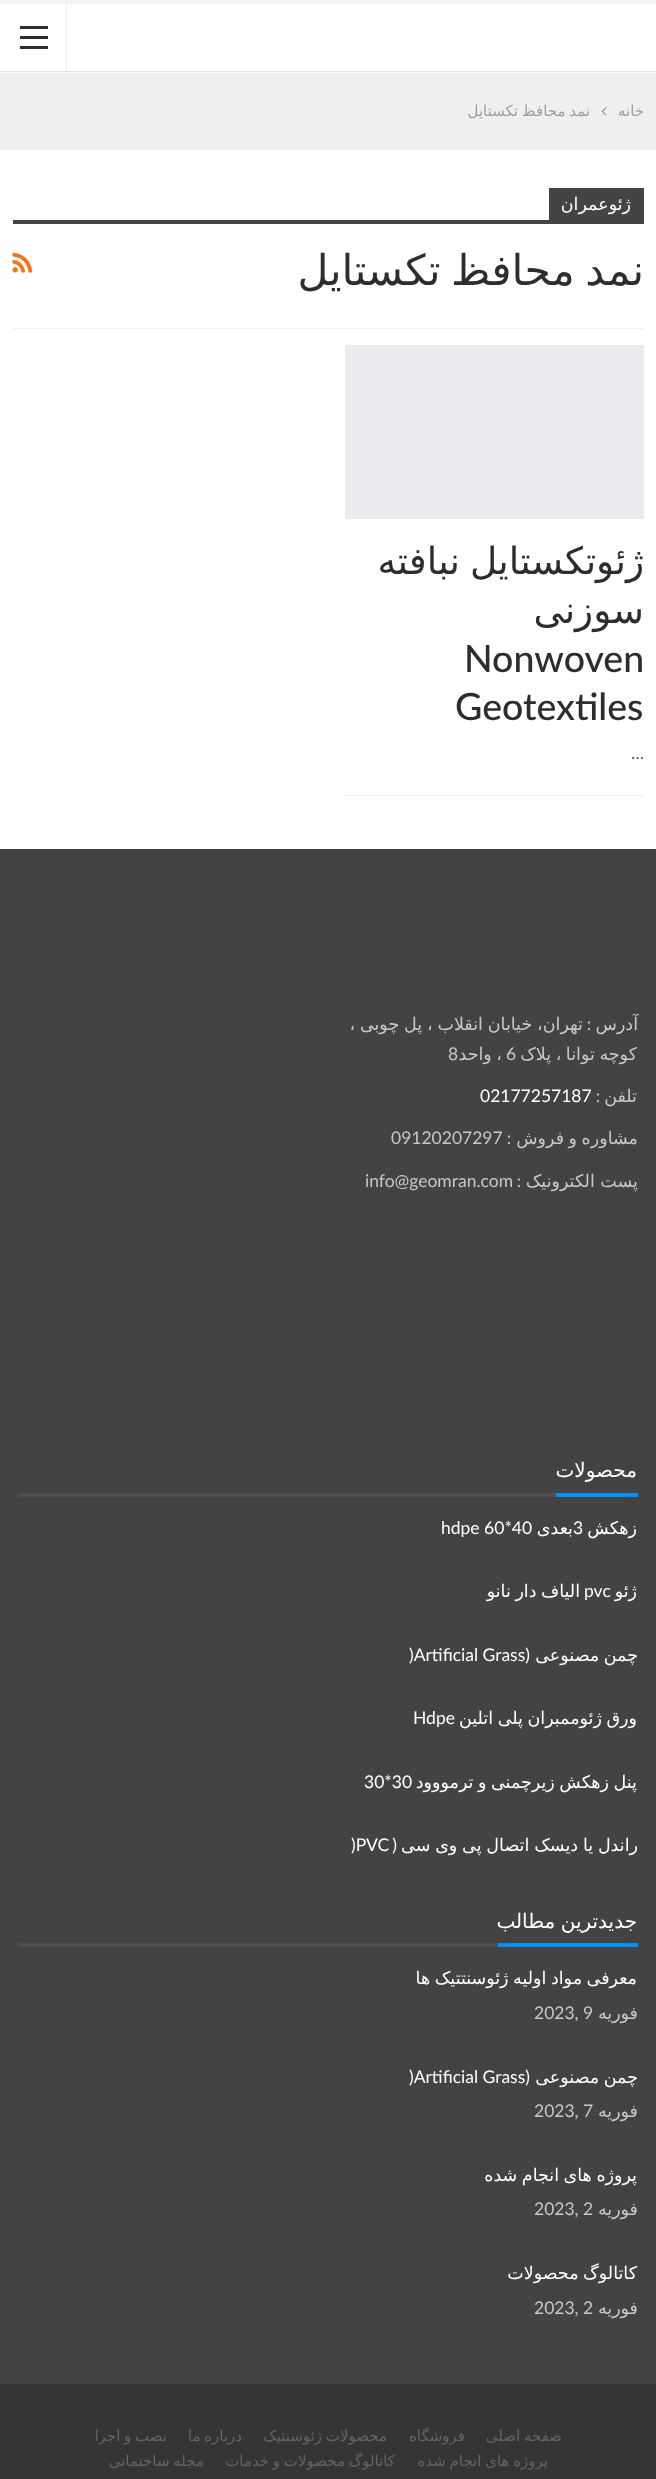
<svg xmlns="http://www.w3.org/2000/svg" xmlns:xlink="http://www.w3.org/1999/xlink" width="656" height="2479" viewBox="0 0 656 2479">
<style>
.cls-1{font:15px DejaVu Sans;direction:rtl;fill:#9e9e9e}
.cls-2{font:17.5px DejaVu Sans;direction:rtl;fill:#ffffff}
.cls-3{font:42.5px DejaVu Sans;direction:rtl;fill:#2d2d2d}
.cls-4{font:37.5px DejaVu Sans;direction:rtl;fill:#2d2d2d}
.cls-5{font:500 37.5px Lato;fill:#2d2d2d}
.cls-6{font:17.5px Lato;fill:#5f6569}
.cls-7{font:17.5px DejaVu Sans;direction:rtl;fill:#c8c8c8}
.cls-8{font:17.5px Lato;direction:rtl;fill:#c8c8c8}
.cls-9{font:17.5px Lato;fill:#c8c8c8}
.cls-10{font:17.5px Lato;fill:#ffffff}
.cls-11{font:20px DejaVu Sans;direction:rtl;fill:#ffffff}
.cls-12{font:17.5px Lato;direction:rtl;fill:#ffffff}
.cls-13{font:15px DejaVu Sans;direction:rtl;fill:#5f6569}
</style>
<rect width="100%" height="100%" fill="#f3f3f3"/>
<rect fill="#ffffff" x="0" y="4" width="656" height="845"/>
<rect fill="#e5e5e5" x="0" y="71" width="656" height="1"/>
<rect fill="#ededed" x="66" y="4" width="1" height="67"/>
<rect fill="#2c2c2c" x="20" y="36" width="28" height="3"/>
<rect fill="#2c2c2c" x="20" y="26" width="28" height="3"/>
<rect fill="#2c2c2c" x="20" y="46" width="28" height="3"/>
<rect fill="#efefef" x="0" y="73" width="656" height="77"/>
<image xlink:href="image0.png" x="601" y="107" width="6" height="9"/>
<rect fill="#f0f0f0" x="13" y="328" width="631" height="1"/>
<rect fill="#444444" x="549" y="188" width="95" height="32"/>
<rect fill="#444444" x="13" y="220" width="631" height="4"/>
<image xlink:href="image1.png" x="12" y="252" width="21" height="21"/>
<rect fill="#e9ebee" x="345" y="345" width="299" height="174"/>
<rect fill="#ededed" x="345" y="795" width="299" height="1"/>
<rect fill="#434343" x="0" y="849" width="656" height="1535"/>
<rect fill="#0093ff" x="556" y="1493" width="82" height="4"/>
<rect fill="#4e4e4e" x="19" y="1493" width="537" height="4"/>
<rect fill="#3f3f3f" x="19" y="1559" width="619" height="1"/>
<rect fill="#3f3f3f" x="19" y="1621" width="619" height="1"/>
<rect fill="#3f3f3f" x="19" y="1685" width="619" height="1"/>
<rect fill="#3f3f3f" x="19" y="1749" width="619" height="1"/>
<rect fill="#3f3f3f" x="19" y="1813" width="619" height="1"/>
<rect fill="#3f3f3f" x="19" y="1876" width="619" height="1"/>
<rect fill="#0093ff" x="498" y="1943" width="140" height="4"/>
<rect fill="#4e4e4e" x="19" y="1943" width="479" height="4"/>
<rect fill="#3f3f3f" x="19" y="2044" width="619" height="1"/>
<rect fill="#3f3f3f" x="19" y="2143" width="619" height="1"/>
<rect fill="#3f3f3f" x="19" y="2240" width="619" height="1"/>
<rect fill="#3f3f3f" x="19" y="2339" width="619" height="1"/>
<rect fill="#353535" x="0" y="2384" width="656" height="95"/>
<text class="cls-1" x="644" y="116">خانه</text>
<text class="cls-1" x="590" y="116" word-spacing="-1">نمد محافظ تکستایل</text>
<text class="cls-2" x="631" y="210">ژئوعمران</text>
<text class="cls-3" x="644" y="285" word-spacing="-3">نمد محافظ تکستایل</text>
<text class="cls-4"><tspan x="644" y="574" word-spacing="-2">ژئوتكستايل نبافته</tspan><tspan x="644" y="623">سوزنی</tspan></text>
<text class="cls-5" x="464" y="672">Nonwoven</text>
<text class="cls-5" x="455" y="720">Geotextiles</text>
<text class="cls-6" x="631" y="759">…</text>
<text class="cls-7" x="638" y="1030">آدرس</text>
<text class="cls-8" x="591" y="1030">:</text>
<text class="cls-7" x="583" y="1030" word-spacing="-0.75">تهران، خیابان انقلاب ، پل چوبی ،</text>
<text class="cls-7" x="637" y="1060" word-spacing="-1">کوچه توانا ، پلاک</text>
<text class="cls-9" x="506" y="1060">6</text>
<text class="cls-7" x="502" y="1060" word-spacing="-1">، واحد</text>
<text class="cls-9" x="448" y="1060">8</text>
<text class="cls-7" x="637" y="1102">تلفن</text>
<text class="cls-8" x="600" y="1102">:</text>
<text class="cls-10" x="480" y="1102">02177257187</text>
<text class="cls-7" x="638" y="1144" word-spacing="-1">مشاوره و فروش</text>
<text class="cls-8" x="511" y="1144">:</text>
<text class="cls-9" x="391" y="1144">09120207297</text>
<text class="cls-7" x="638" y="1187">پست الکترونیک</text>
<text class="cls-8" x="521" y="1187">:</text>
<text class="cls-9" x="365" y="1187">info@geomran.com</text>
<text class="cls-11" x="637" y="1477">محصولات</text>
<text class="cls-2" x="637" y="1534">زهکش</text>
<text class="cls-10" x="573" y="1534">3</text>
<text class="cls-2" x="573" y="1534">بعدی</text>
<text class="cls-10" x="441" y="1534">hdpe 60*40</text>
<text class="cls-2" x="637" y="1597">ژئو</text>
<text class="cls-10" x="584" y="1597">pvc</text>
<text class="cls-2" x="580" y="1597" word-spacing="-1">الیاف دار نانو</text>
<text class="cls-2" x="638" y="1661" word-spacing="-1">چمن مصنوعی</text>
<text class="cls-12" x="530" y="1661">(</text>
<text class="cls-10" x="409" y="1661">)Artificial Grass</text>
<text class="cls-2" x="637" y="1724" word-spacing="-1">ورق ژئوممبران پلی اتلین</text>
<text class="cls-10" x="413" y="1724">Hdpe</text>
<text class="cls-2" x="637" y="1788" word-spacing="-1">پنل زهکش زیرچمنی و ترمووود</text>
<text class="cls-10" x="364" y="1788">30*30</text>
<text class="cls-2" x="638" y="1851" word-spacing="-0.75">راندل یا دیسک اتصال پی وی سی</text>
<text class="cls-12" x="397" y="1851">(</text>
<text class="cls-10" x="351" y="1851">)PVC</text>
<text class="cls-11" x="637" y="1928" word-spacing="-1">جدیدترین مطالب</text>
<text class="cls-2" x="637" y="1984" word-spacing="-1">معرفی مواد اولیه ژئوسنتتیک ها</text>
<text class="cls-7" x="638" y="2019">فوریه</text>
<text class="cls-9" x="534" y="2019">2023, 9</text>
<text class="cls-2" x="638" y="2083" word-spacing="-1">چمن مصنوعی</text>
<text class="cls-12" x="530" y="2083">(</text>
<text class="cls-10" x="409" y="2083">)Artificial Grass</text>
<text class="cls-7" x="638" y="2117">فوریه</text>
<text class="cls-9" x="534" y="2117">2023, 7</text>
<text class="cls-2" x="637" y="2181" word-spacing="-1">پروژه های انجام شده</text>
<text class="cls-7" x="638" y="2215">فوریه</text>
<text class="cls-9" x="534" y="2215">2023, 2</text>
<text class="cls-2" x="637" y="2279" word-spacing="-1">کاتالوگ محصولات</text>
<text class="cls-7" x="638" y="2314">فوریه</text>
<text class="cls-9" x="534" y="2314">2023, 2</text>
<text class="cls-13" x="562" y="2441" word-spacing="-1">صفحه اصلی</text>
<text class="cls-13" x="465" y="2441">فروشگاه</text>
<text class="cls-13" x="387" y="2441" word-spacing="-1">محصولات ژئوسنتیک</text>
<text class="cls-13" x="242" y="2441" word-spacing="-1">درباره ما</text>
<text class="cls-13" x="167" y="2441" word-spacing="-1">نصب و اجرا</text>
<text class="cls-13" x="548" y="2466" word-spacing="-1">پروژه های انجام شده</text>
<text class="cls-13" x="395" y="2466" word-spacing="-1">کاتالوگ محصولات و خدمات</text>
<text class="cls-13" x="204" y="2466" word-spacing="-1">مجله ساختمانی</text>
</svg>
